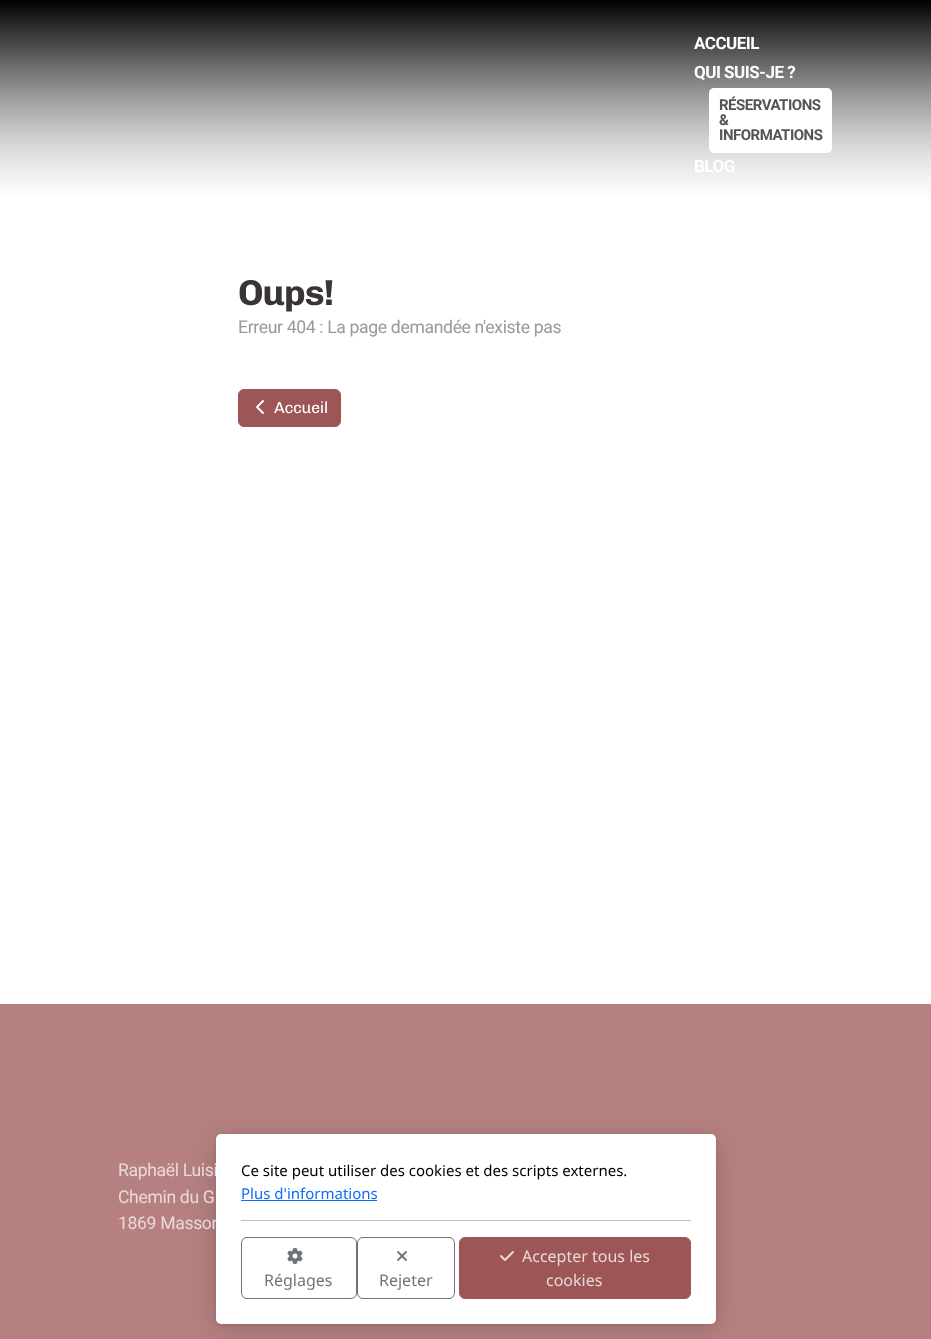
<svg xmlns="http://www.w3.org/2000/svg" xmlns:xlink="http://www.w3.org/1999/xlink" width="931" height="1339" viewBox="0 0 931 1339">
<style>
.cls-1{font:bold 17px Roboto;letter-spacing:-0.5px;fill:#ffffff}
.cls-2{font:bold 15px Roboto;letter-spacing:-0.5px;fill:#545454}
.cls-3{font:500 36px Chivo;letter-spacing:-1px;fill:#3a3535}
.cls-4{font:17.6px Roboto;letter-spacing:-0.35px;fill:#999999}
.cls-5{font:500 16px 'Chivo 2';letter-spacing:-0.35px;fill:#ffffff}
.cls-6{font:17.6px Roboto;letter-spacing:-0.35px;fill:#e9d9d9}
.cls-7{font:15px Noto Sans;fill:#000000}
.cls-8{font:15px Noto Sans;fill:#0d6efd}
.cls-9{font:16px Noto Sans;fill:#6c757d}
.cls-10{font:16px Noto Sans;fill:#e9d9d9}
</style>
<defs>
<linearGradient id="g1" gradientUnits="userSpaceOnUse" x1="466" y1="0" x2="466" y2="212"><stop offset="0" stop-color="#000000"/><stop offset="0.19" stop-color="#434343"/><stop offset="0.34" stop-color="#767676"/><stop offset="0.47" stop-color="#9f9f9f"/><stop offset="0.56" stop-color="#b8b8b8"/><stop offset="0.65" stop-color="#cfcfcf"/><stop offset="0.73" stop-color="#e0e0e0"/><stop offset="0.8" stop-color="#ececec"/><stop offset="0.86" stop-color="#f5f5f5"/><stop offset="0.91" stop-color="#fbfbfb"/><stop offset="0.95" stop-color="#fefefe"/><stop offset="0.98" stop-color="#ffffff"/><stop offset="1" stop-color="#ffffff"/></linearGradient>
</defs>
<rect width="100%" height="100%" fill="#ffffff"/>
<rect fill="url(#g1)" x="0" y="0" width="931" height="197"/>
<rect fill="#ffffff" x="709" y="88" width="123" height="65" rx="5"/>
<rect fill="#9d5555" stroke="#9d5555" x="238.5" y="389.5" width="102" height="37" rx="5.5"/>
<image xlink:href="image0.png" x="256" y="400" width="8" height="14"/>
<rect fill="#b68080" x="0" y="1004" width="931" height="335"/>
<rect fill="#000000" fill-opacity="0.16" filter="blur(15px)" x="216" y="1139" width="500" height="190" rx="5"/>
<rect fill="#000000" fill-opacity="0.1" filter="blur(1.5px)" x="216" y="1135" width="500" height="190" rx="5"/>
<text class="cls-1"><tspan x="694" y="49">ACCUEIL</tspan><tspan x="694" y="78">QUI SUIS-JE ?</tspan></text>
<text class="cls-2"><tspan x="719" y="110">RÉSERVATIONS</tspan><tspan x="719" y="125">&amp;</tspan><tspan x="719" y="140">INFORMATIONS</tspan></text>
<text class="cls-1" x="694" y="172">BLOG</text>
<text class="cls-3" x="238" y="305">Oups!</text>
<text class="cls-4" x="238" y="333">Erreur 404 : La page demandée n'existe pas</text>
<text class="cls-5" x="274" y="413">Accueil</text>
<text class="cls-6"><tspan x="118" y="1176">Raphaël Luisi</tspan><tspan x="118" y="1203">Chemin du G</tspan><tspan x="118" y="1229">1869 Masson</tspan></text>
<rect fill="#ffffff" x="216" y="1134" width="500" height="190" rx="5"/>
<text class="cls-7" x="241" y="1176">Ce site peut utiliser des cookies et des scripts externes.</text>
<text class="cls-8" x="241" y="1199">Plus d'informations</text>
<rect fill="#0d6efd" x="241" y="1200" width="136" height="1"/>
<rect fill="#bfbfbf" x="241" y="1220" width="450" height="1"/>
<rect fill="none" stroke="#6c757d" x="241.5" y="1237.5" width="115" height="61" rx="5.5"/>
<image xlink:href="image1.png" x="287" y="1248" width="16" height="16"/>
<text class="cls-9" x="264" y="1286">Réglages</text>
<rect fill="none" stroke="#6c757d" x="357.5" y="1237.5" width="97" height="61" rx="5.5"/>
<image xlink:href="image2.png" x="397" y="1251" width="10" height="10"/>
<text class="cls-9" x="379" y="1286">Rejeter</text>
<rect fill="#9d5555" stroke="#9d5555" x="459.5" y="1237.5" width="231" height="61" rx="5.5"/>
<image xlink:href="image3.png" x="500" y="1251" width="14" height="10"/>
<text class="cls-10" x="522" y="1262">Accepter tous les</text>
<text class="cls-10" x="546" y="1286">cookies</text>
</svg>
